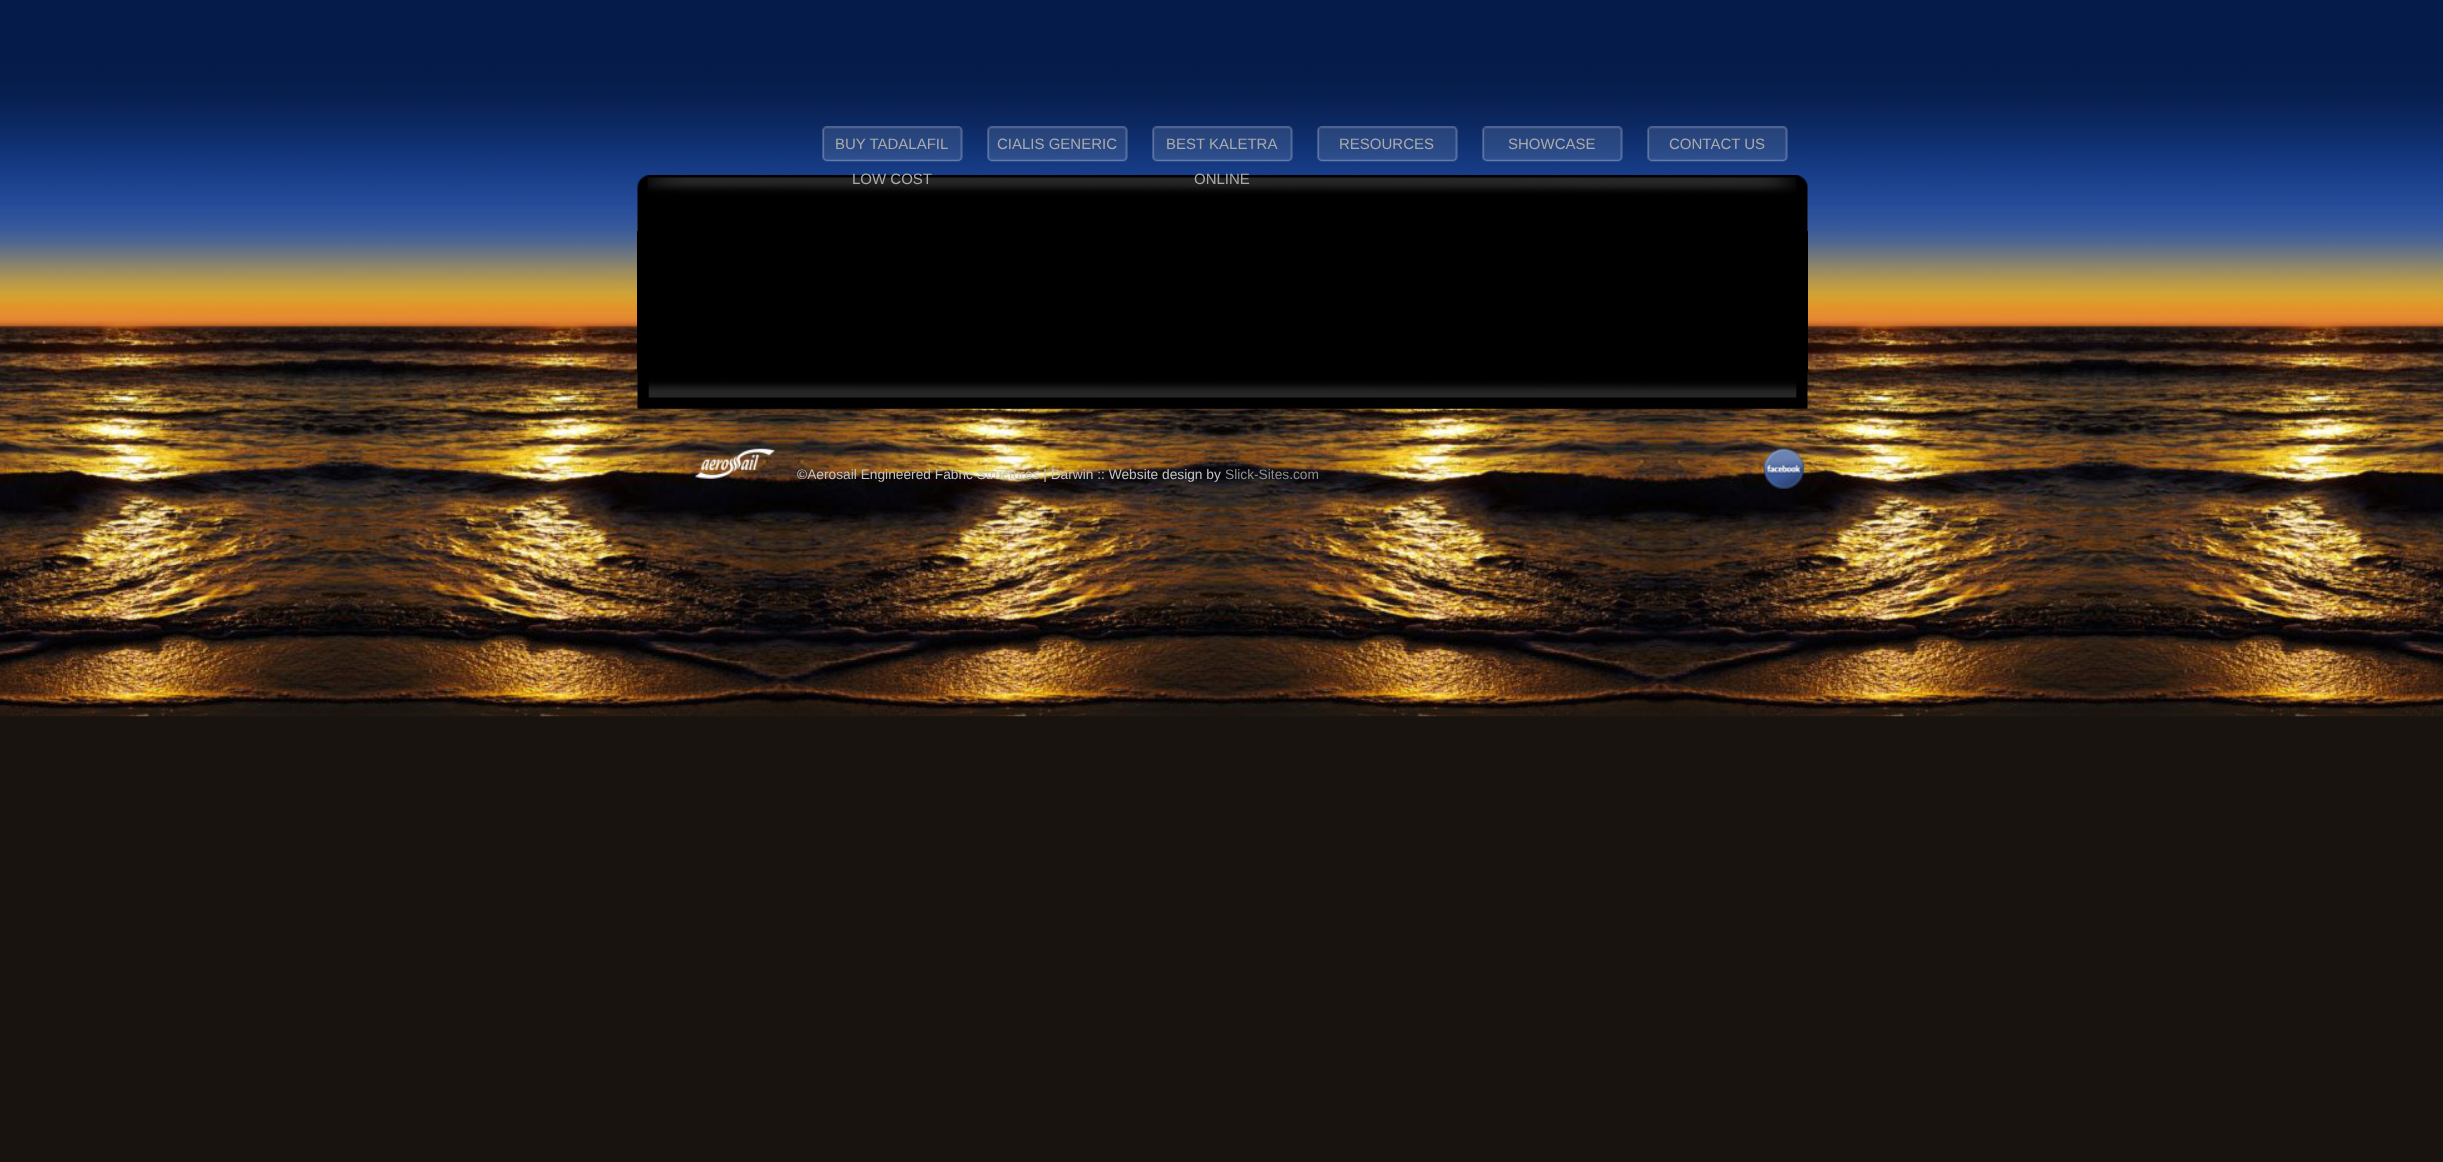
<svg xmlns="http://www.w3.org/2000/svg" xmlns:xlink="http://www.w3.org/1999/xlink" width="2443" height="1162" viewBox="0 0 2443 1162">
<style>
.cls-1{font:15px Liberation Sans;fill:#aaaaaa}
.cls-2{font:13.75px Liberation Sans;fill:#c4c4c4}
.cls-3{font:13.75px Liberation Sans;fill:#8f8f8f}
</style>
<rect width="100%" height="100%" fill="#18130f"/>
<image xlink:href="image0.png" x="0" y="0" width="2443" height="717"/>
<image xlink:href="image1.png" x="822" y="126" width="141" height="36"/>
<image xlink:href="image2.png" x="987" y="126" width="141" height="36"/>
<image xlink:href="image3.png" x="1152" y="126" width="141" height="36"/>
<image xlink:href="image4.png" x="1317" y="126" width="141" height="36"/>
<image xlink:href="image5.png" x="1482" y="126" width="141" height="36"/>
<image xlink:href="image6.png" x="1647" y="126" width="141" height="36"/>
<image xlink:href="image7.png" x="637" y="175" width="1171" height="56"/>
<rect fill="#000000" x="637" y="231" width="1171" height="141"/>
<image xlink:href="image8.png" x="637" y="372" width="1171" height="37"/>
<image xlink:href="image9.png" x="695" y="448" width="80" height="31"/>
<image xlink:href="image10.png" x="1763" y="448" width="41" height="41"/>
<text class="cls-1" x="835" y="149">BUY TADALAFIL</text>
<text class="cls-1" x="852" y="184">LOW COST</text>
<text class="cls-1" x="997" y="149">CIALIS GENERIC</text>
<text class="cls-1" x="1166" y="149">BEST KALETRA</text>
<text class="cls-1" x="1194" y="184">ONLINE</text>
<text class="cls-1" x="1339" y="149">RESOURCES</text>
<text class="cls-1" x="1508" y="149">SHOWCASE</text>
<text class="cls-1" x="1669" y="149">CONTACT US</text>
<text class="cls-2" x="797" y="479">©Aerosail Engineered Fabric Structures | Darwin :: Website design by</text>
<text class="cls-3" x="1225" y="479">Slick-Sites.com</text>
</svg>
